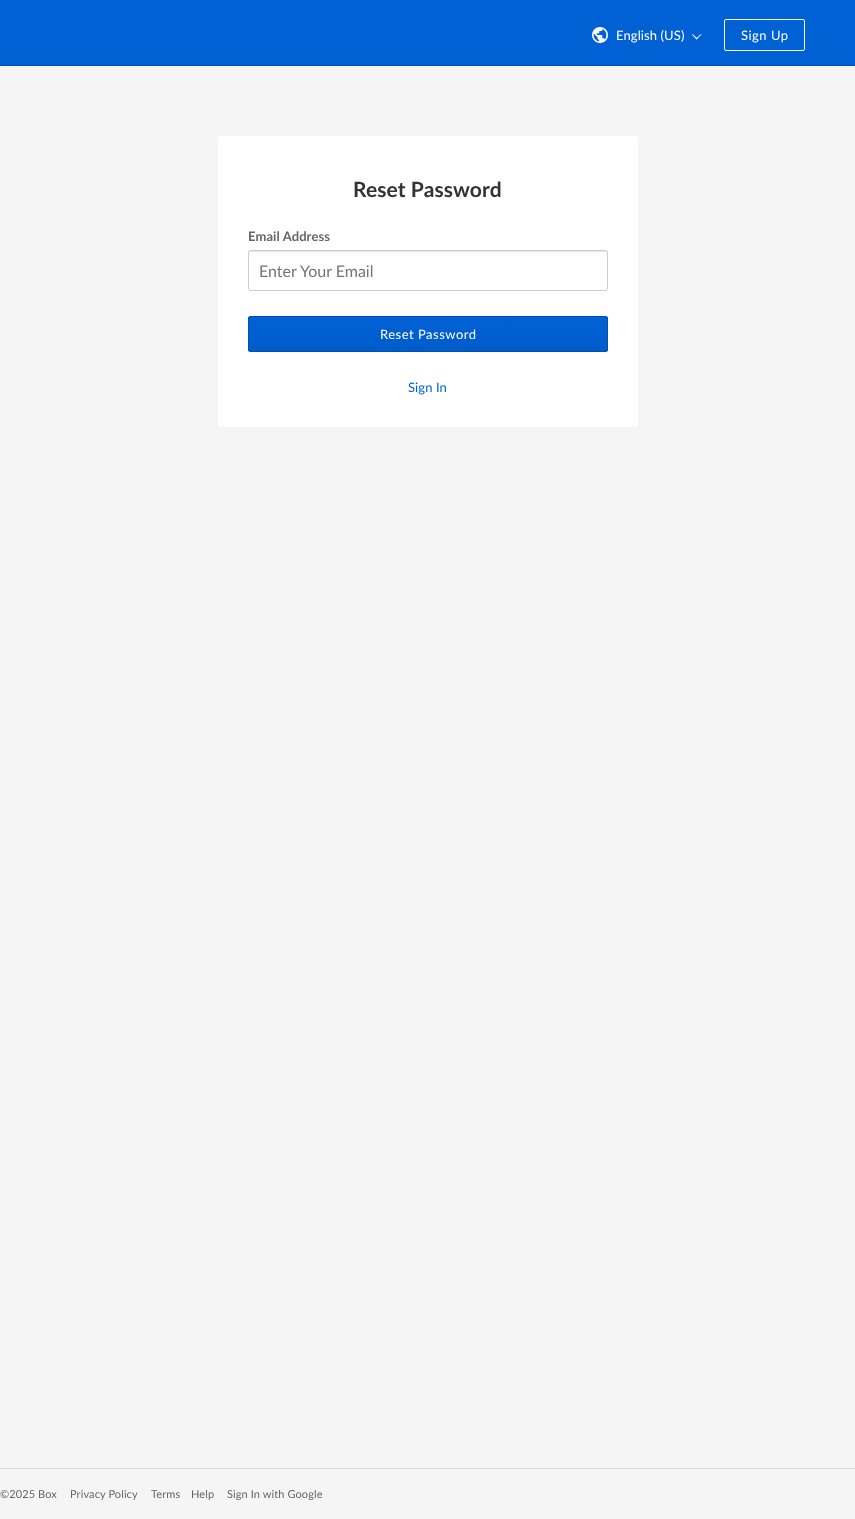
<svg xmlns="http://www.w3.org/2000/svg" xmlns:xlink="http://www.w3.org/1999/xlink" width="855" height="1519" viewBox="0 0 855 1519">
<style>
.cls-1{font:13px Lato;letter-spacing:0.1px;fill:#ffffff}
.cls-2{font:13px Lato;letter-spacing:0.5px;fill:#ffffff}
.cls-3{font:bold 21px Lato;letter-spacing:0.1px;fill:#333333}
.cls-4{font:bold 13px Lato;letter-spacing:0.1px;fill:#666666}
.cls-5{font:16px Lato;fill:#757575}
.cls-6{font:13px Lato;letter-spacing:0.1px;fill:#0061d5}
.cls-7{font:11px Lato;letter-spacing:0.1px;fill:#666666}
</style>
<defs>
<clipPath id="clip1"><rect x="248" y="316" width="360" height="36" rx="2"/></clipPath>
<linearGradient id="g1" gradientUnits="userSpaceOnUse" x1="428" y1="317" x2="428" y2="351"><stop offset="0" stop-color="#0061d5"/><stop offset="1" stop-color="#005cca"/></linearGradient>
</defs>
<rect width="100%" height="100%" fill="#f5f5f5"/>
<rect fill="#0061d5" x="0" y="0" width="855" height="65"/>
<rect fill="#0050b1" x="0" y="65" width="855" height="1"/>
<image xlink:href="image0.png" x="592" y="27" width="16" height="16"/>
<path fill="#ffffff" d="M701 34L701.5 34.5L696.5 39.5L696 38.5Z"/>
<path fill="#ffffff" d="M692.5 34L697.5 38.5L696.5 39.5L692 34.5Z"/>
<rect fill="none" stroke="#ffffff" x="724.5" y="19.5" width="80" height="31" rx="1.5"/>
<rect fill="#ffffff" x="218" y="136" width="420" height="291" rx="3"/>
<path fill="#e6e6e6" d="M251 252H605C606 252 607 253 607 254C607 253 607 251 605 251H251C249 251 249 253 249 254C249 253 250 252 251 252Z"/>
<rect fill="none" stroke="#cccccc" x="248.5" y="250.5" width="359" height="40" rx="2.5"/>
<g clip-path="url(#clip1)">
<rect fill="url(#g1)" x="248" y="317" width="360" height="34"/>
</g>
<rect fill="none" stroke="#0050b1" x="248.5" y="316.5" width="359" height="35" rx="1.5"/>
<rect fill="#dddddd" x="0" y="1468" width="855" height="1"/>
<text class="cls-1" x="616" y="40">English (US)</text>
<text class="cls-2" x="741" y="40">Sign Up</text>
<text class="cls-3" x="353" y="197">Reset Password</text>
<text class="cls-4" x="248" y="241">Email Address</text>
<text class="cls-5" x="259" y="277">Enter Your Email</text>
<text class="cls-2" x="380" y="339">Reset Password</text>
<text class="cls-6" x="408" y="392">Sign In</text>
<text class="cls-7" x="0" y="1498">©2025 Box</text>
<text class="cls-7" x="70" y="1498">Privacy Policy</text>
<text class="cls-7" x="151" y="1498">Terms</text>
<text class="cls-7" x="191" y="1498">Help</text>
<text class="cls-7" x="227" y="1498">Sign In with Google</text>
</svg>
